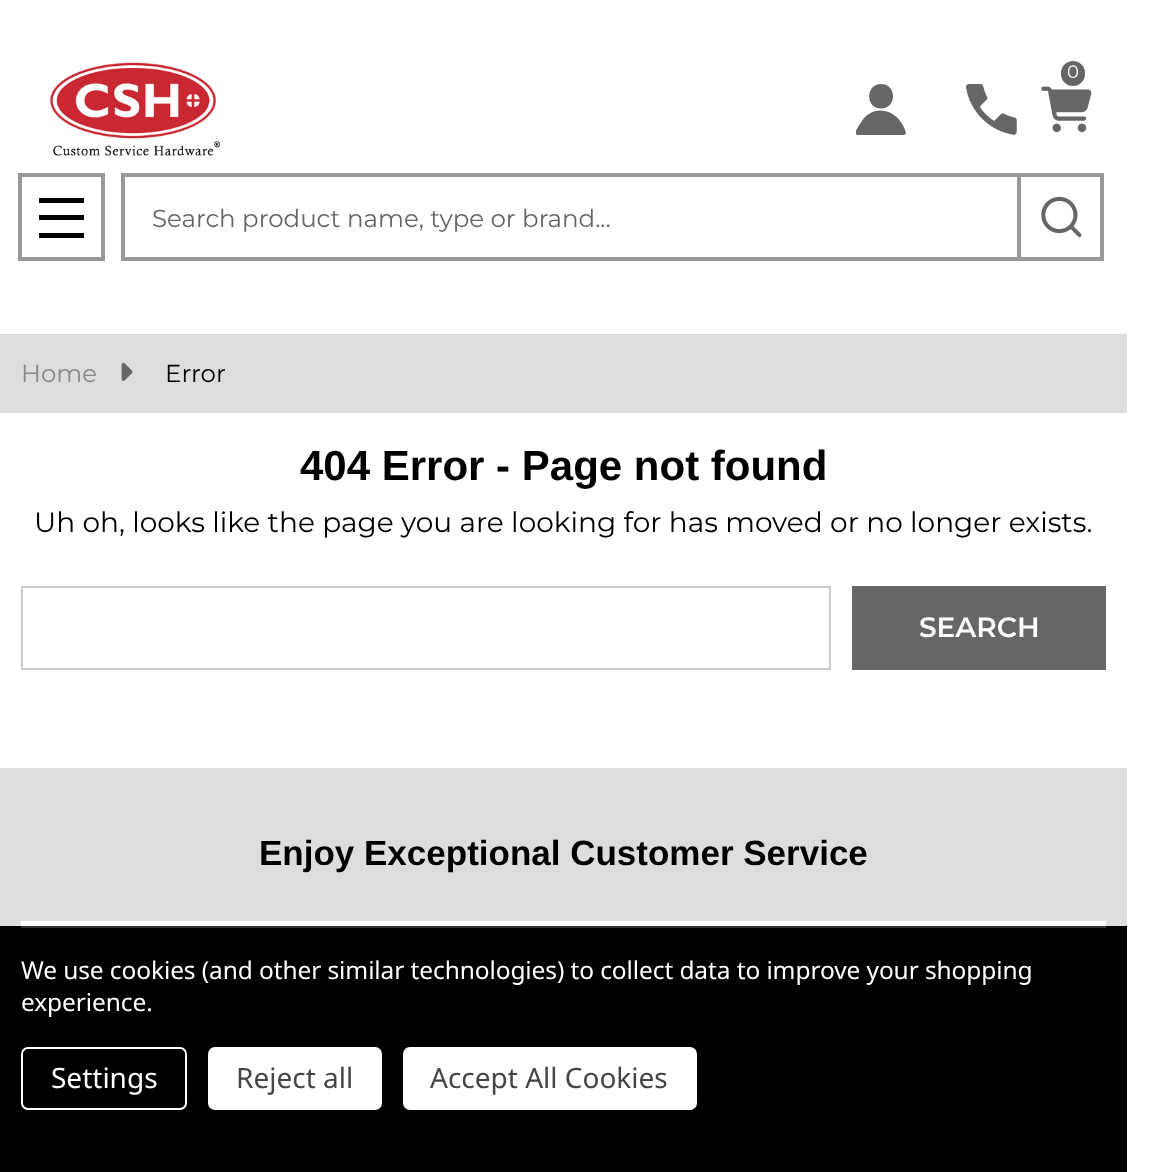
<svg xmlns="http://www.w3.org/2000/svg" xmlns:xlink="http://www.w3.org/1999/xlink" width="1152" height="1172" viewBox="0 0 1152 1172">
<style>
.cls-1{font:18px Montserrat;letter-spacing:-1px;fill:#ffffff}
.cls-2{font:24.5px Montserrat;fill:#666666}
.cls-3{font:24.5px Montserrat;fill:#888888}
.cls-4{font:24.5px Montserrat;fill:#000000}
.cls-5{font:bold 42px Liberation Sans;fill:#000000}
.cls-6{font:28px Montserrat;fill:#000000}
.cls-7{font:600 28px Montserrat;fill:#ffffff}
.cls-8{font:bold 35px Liberation Sans;fill:#000000}
.cls-9{font:24.5px Noto Sans;letter-spacing:-0.1px;fill:#ffffff}
.cls-10{font:28px Noto Sans;fill:#ffffff}
.cls-11{font:28px Noto Sans;fill:#454545}
</style>
<defs>
<clipPath id="clip1"><rect x="856" y="84" width="51" height="51"/></clipPath>
</defs>
<rect width="100%" height="100%" fill="#ffffff"/>
<image xlink:href="image0.png" x="50" y="62" width="171" height="94"/>
<rect fill="#666666" x="1061" y="61" width="24" height="25" rx="12"/>
<image xlink:href="image1.png" x="1041" y="86" width="51" height="47"/>
<path fill="#666666" d="M881 108.5C897 108.5 897 84 881 84C865.5 84 865 108.5 881 108.5Z"/>
<g clip-path="url(#clip1)">
<path fill="#666666" d="M906 133C900 110 873 101 860 124C852 136 855 135 865 135H897C900 135 906 136 906 133Z"/>
</g>
<image xlink:href="image2.png" x="966" y="84" width="51" height="51"/>
<rect fill="none" stroke="#989898" stroke-width="4" x="20" y="175" width="83" height="84"/>
<rect fill="#000000" x="39" y="215" width="45" height="5"/>
<rect fill="#000000" x="39" y="198" width="45" height="5"/>
<rect fill="#000000" x="39" y="233" width="45" height="5"/>
<rect fill="#989898" x="121" y="173" width="896" height="4"/>
<rect fill="#989898" x="121" y="257" width="896" height="4"/>
<rect fill="#989898" x="121" y="173" width="4" height="88"/>
<rect fill="none" stroke="#989898" stroke-width="4" x="1019" y="175" width="83" height="84"/>
<image xlink:href="image3.png" x="1041" y="196" width="41" height="42"/>
<rect fill="#dddddd" x="0" y="334" width="1127" height="79"/>
<image xlink:href="image4.png" x="121" y="362" width="12" height="19"/>
<rect fill="none" stroke="#cccccc" stroke-width="2" x="22" y="587" width="808" height="82"/>
<rect fill="#666666" x="852" y="586" width="254" height="84"/>
<rect fill="#dddddd" x="0" y="768" width="1127" height="158"/>
<rect fill="#ffffff" x="21" y="921" width="1085" height="5"/>
<rect fill="#000000" x="0" y="926" width="1127" height="246"/>
<rect fill="#333333" x="21" y="926" width="1085" height="2"/>
<rect fill="none" stroke="#ffffff" stroke-width="2" x="22" y="1048" width="164" height="61" rx="6"/>
<rect fill="#ffffff" x="208" y="1047" width="174" height="63" rx="7"/>
<rect fill="#ffffff" x="403" y="1047" width="294" height="63" rx="7"/>
<text class="cls-1" x="1067" y="78">0</text>
<text class="cls-2" x="152" y="227">Search product name, type or brand...</text>
<text class="cls-3" x="21" y="382">Home</text>
<text class="cls-4" x="165" y="382">Error</text>
<text class="cls-5" x="300" y="480">404 Error - Page not found</text>
<text class="cls-6" x="34" y="532">Uh oh, looks like the page you are looking for has moved or no longer exists.</text>
<text class="cls-7" x="919" y="637">SEARCH</text>
<text class="cls-8" x="259" y="865">Enjoy Exceptional Customer Service</text>
<text class="cls-9"><tspan x="21" y="979">We use cookies (and other similar technologies) to collect data to improve your shopping</tspan><tspan x="21" y="1011">experience.</tspan></text>
<text class="cls-10" x="51" y="1088">Settings</text>
<text class="cls-11" x="236" y="1088">Reject all</text>
<text class="cls-11" x="430" y="1088">Accept All Cookies</text>
</svg>
